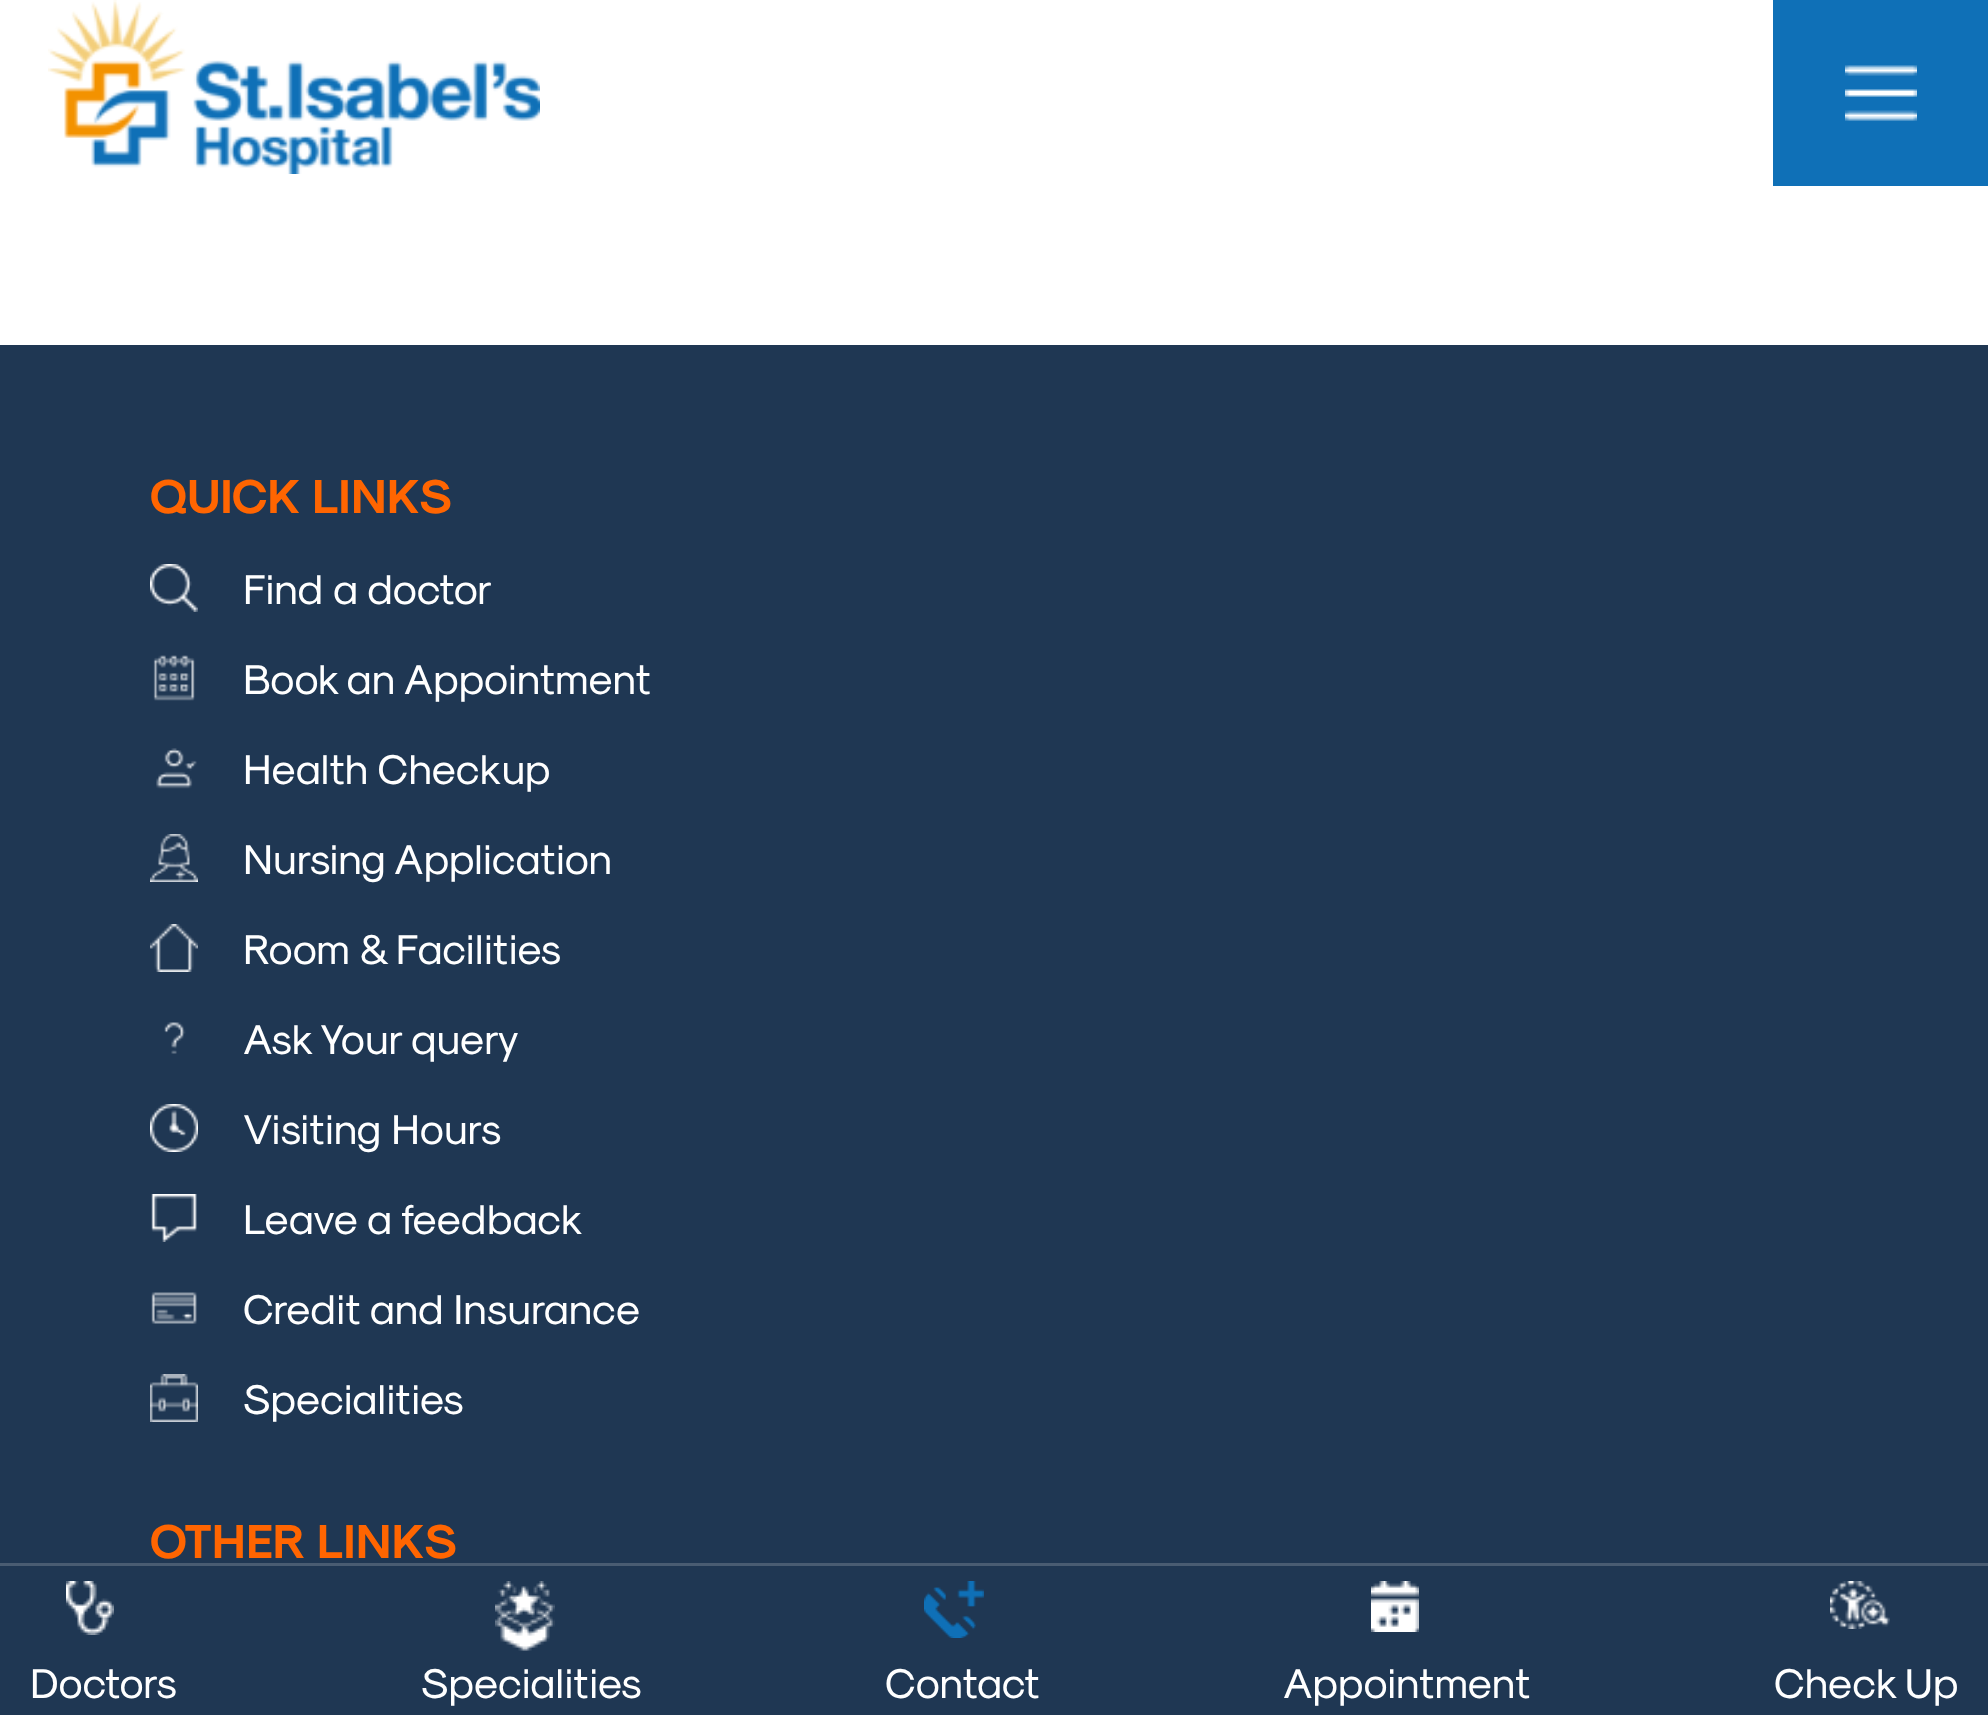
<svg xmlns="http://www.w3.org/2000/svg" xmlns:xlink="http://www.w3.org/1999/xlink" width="1988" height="1715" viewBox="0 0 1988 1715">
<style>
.cls-1{font:bold 48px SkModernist;fill:#ff6501}
.cls-2{font:42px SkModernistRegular;fill:#ffffff}
</style>
<rect width="100%" height="100%" fill="#ffffff"/>
<image xlink:href="image0.png" x="48" y="0" width="492" height="174"/>
<rect fill="#0f70b7" x="1773" y="0" width="215" height="186"/>
<image xlink:href="image1.png" x="1845" y="65" width="72" height="56"/>
<rect fill="#1f3753" x="0" y="345" width="1988" height="1218"/>
<image xlink:href="image2.png" x="150" y="564" width="48" height="48"/>
<image xlink:href="image3.png" x="153" y="655" width="42" height="46"/>
<image xlink:href="image4.png" x="156" y="748" width="41" height="41"/>
<image xlink:href="image5.png" x="150" y="834" width="48" height="48"/>
<image xlink:href="image6.png" x="150" y="924" width="48" height="48"/>
<image xlink:href="image7.png" x="164" y="1022" width="22" height="32"/>
<image xlink:href="image8.png" x="150" y="1104" width="48" height="48"/>
<image xlink:href="image9.png" x="151" y="1194" width="46" height="48"/>
<image xlink:href="image10.png" x="151" y="1292" width="46" height="32"/>
<image xlink:href="image11.png" x="150" y="1374" width="48" height="48"/>
<rect fill="#1f3753" x="0" y="1566" width="1988" height="149"/>
<rect fill="#495c72" x="0" y="1563" width="1988" height="3"/>
<image xlink:href="image12.png" x="66" y="1581" width="48" height="54"/>
<image xlink:href="image13.png" x="495" y="1581" width="60" height="70"/>
<image xlink:href="image14.png" x="924" y="1581" width="60" height="57"/>
<image xlink:href="image15.png" x="1371" y="1581" width="48" height="51"/>
<image xlink:href="image16.png" x="1830" y="1581" width="60" height="48"/>
<text class="cls-1" x="150" y="513">QUICK LINKS</text>
<text class="cls-2" x="243" y="604">Find a doctor</text>
<text class="cls-2" x="243" y="694">Book an Appointment</text>
<text class="cls-2" x="243" y="784">Health Checkup</text>
<text class="cls-2" x="243" y="874">Nursing Application</text>
<text class="cls-2" x="243" y="964">Room &amp; Facilities</text>
<text class="cls-2" x="243" y="1054">Ask Your query</text>
<text class="cls-2" x="243" y="1144">Visiting Hours</text>
<text class="cls-2" x="243" y="1234">Leave a feedback</text>
<text class="cls-2" x="243" y="1324">Credit and Insurance</text>
<text class="cls-2" x="243" y="1414">Specialities</text>
<text class="cls-1" x="150" y="1558">OTHER LINKS</text>
<text class="cls-2" x="30" y="1698">Doctors</text>
<text class="cls-2" x="421" y="1698">Specialities</text>
<text class="cls-2" x="885" y="1698">Contact</text>
<text class="cls-2" x="1283" y="1698">Appointment</text>
<text class="cls-2" x="1774" y="1698">Check Up</text>
</svg>
